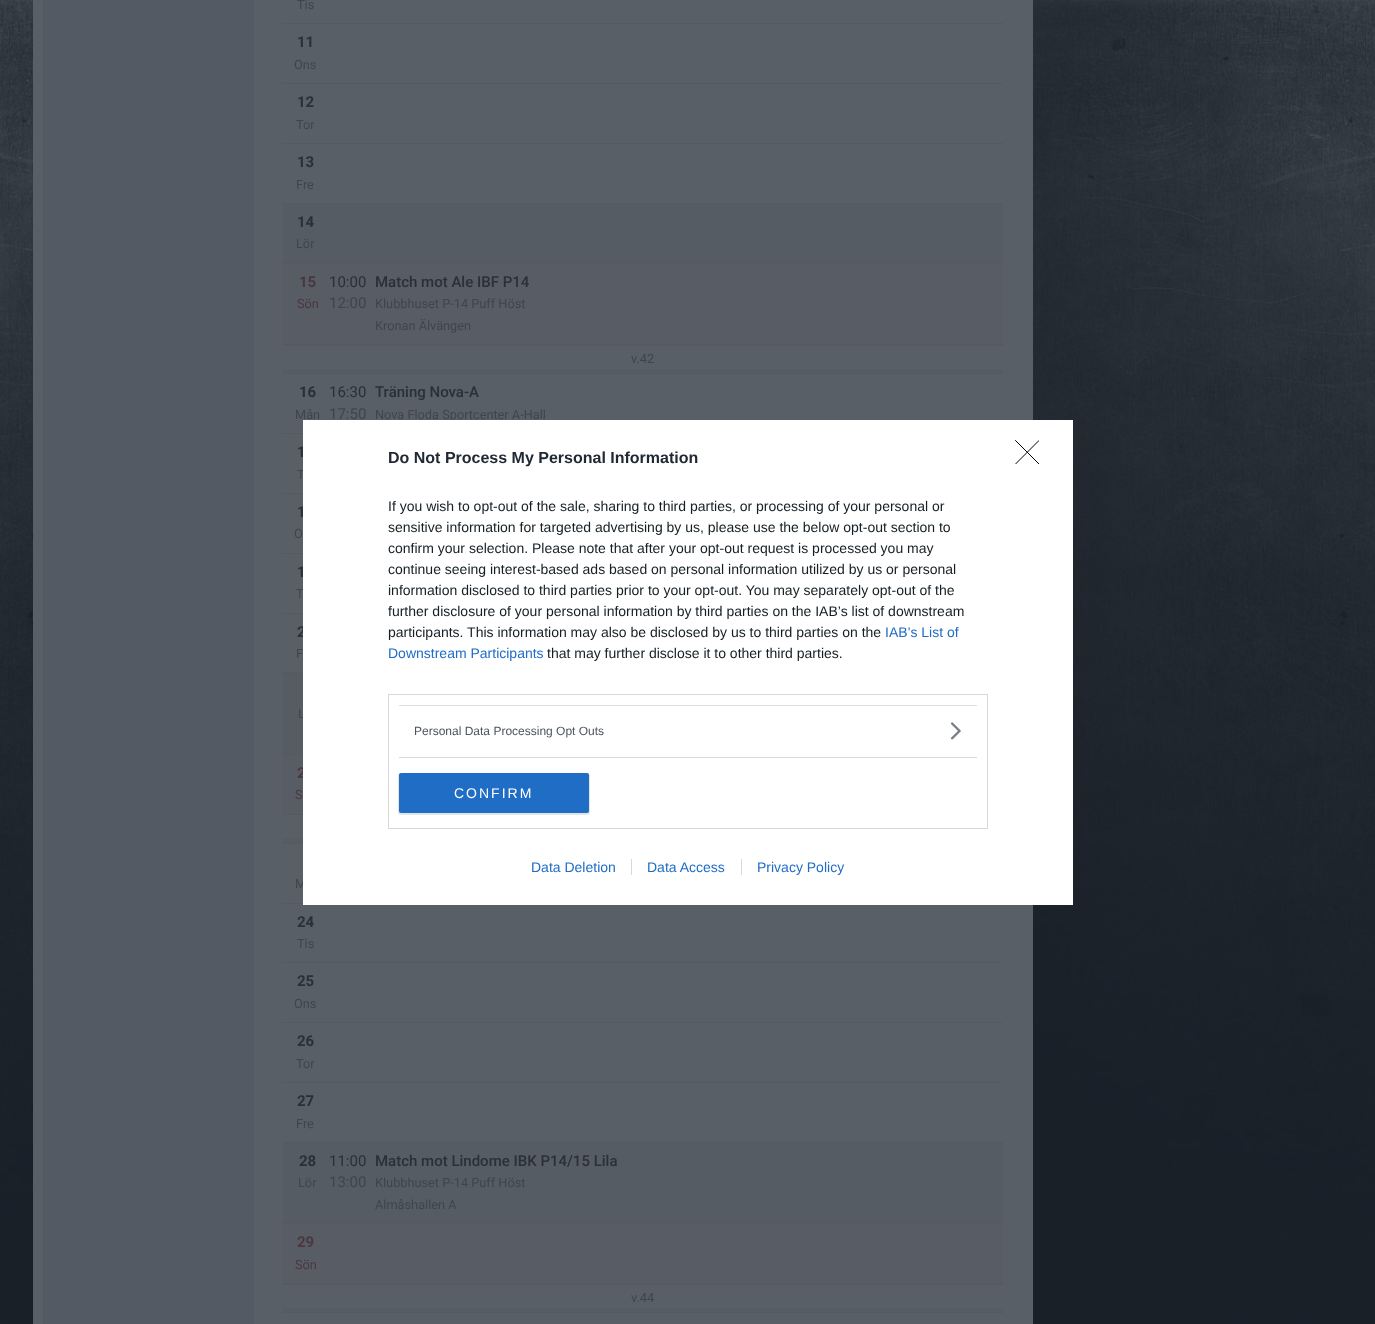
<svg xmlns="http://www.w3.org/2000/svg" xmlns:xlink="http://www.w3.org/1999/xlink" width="1375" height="1324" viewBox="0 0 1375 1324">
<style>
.cls-1{font:12.75px Roboto;fill:#3f454d}
.cls-2{font:bold 15px Roboto;fill:#2a3038}
.cls-3{font:bold 15px Roboto;fill:#4a3740}
.cls-4{font:12.75px Roboto;fill:#4a3740}
.cls-5{font:15px Roboto;fill:#2a3038}
.cls-6{font:15px Roboto;fill:#3f454d}
.cls-7{font:500 15px Roboto;fill:#2a3038}
.cls-8{font:bold 16px Liberation Sans;fill:#212934}
.cls-9{font:14px Liberation Sans;fill:#141e23}
.cls-10{font:14px Liberation Sans;fill:#206dc5}
.cls-11{font:12px Liberation Sans;fill:#4d545d}
.cls-12{font:14px Liberation Sans;letter-spacing:2px;fill:#ffffff}
</style>
<defs>
<linearGradient id="g1" gradientUnits="userSpaceOnUse" x1="643" y1="318" x2="643" y2="346"><stop offset="0" stop-color="#595f67"/><stop offset="1" stop-color="#565c64"/></linearGradient>
<linearGradient id="g2" gradientUnits="userSpaceOnUse" x1="643" y1="346" x2="643" y2="374"><stop offset="0" stop-color="#595f67"/><stop offset="1" stop-color="#565c64"/></linearGradient>
<linearGradient id="g3" gradientUnits="userSpaceOnUse" x1="643" y1="815" x2="643" y2="843"><stop offset="0" stop-color="#595f67"/><stop offset="1" stop-color="#565c64"/></linearGradient>
<linearGradient id="g4" gradientUnits="userSpaceOnUse" x1="643" y1="1257" x2="643" y2="1285"><stop offset="0" stop-color="#595f67"/><stop offset="1" stop-color="#565c64"/></linearGradient>
<linearGradient id="g5" gradientUnits="userSpaceOnUse" x1="643" y1="1285" x2="643" y2="1313"><stop offset="0" stop-color="#595f67"/><stop offset="1" stop-color="#565c64"/></linearGradient>
<clipPath id="clip1"><rect x="1015" y="440" width="24" height="24"/></clipPath>
</defs>
<rect width="100%" height="100%" fill="#ffffff"/>
<image xlink:href="image0.png" x="0" y="0" width="1375" height="1324"/>
<rect fill="#595f67" x="33" y="0" width="1000" height="1324"/>
<rect fill="#545a63" x="43" y="0" width="211" height="1324"/>
<rect fill="#545a63" x="282" y="23" width="721" height="1"/>
<rect fill="#545a63" x="282" y="83" width="721" height="1"/>
<rect fill="#545a63" x="282" y="143" width="721" height="1"/>
<rect fill="#545a63" x="282" y="203" width="721" height="1"/>
<rect fill="#565c64" x="283" y="204" width="720" height="59"/>
<rect fill="#545a63" x="282" y="263" width="721" height="1"/>
<rect fill="#585c65" x="283" y="264" width="720" height="80"/>
<rect fill="url(#g1)" x="283" y="345" width="720" height="1"/>
<rect fill="url(#g2)" x="283" y="369" width="720" height="4"/>
<rect fill="#545a63" x="282" y="344" width="721" height="1"/>
<rect fill="#545a63" x="282" y="373" width="721" height="1"/>
<rect fill="#545a63" x="282" y="433" width="21" height="1"/>
<rect fill="#545a63" x="282" y="493" width="21" height="1"/>
<rect fill="#545a63" x="282" y="553" width="21" height="1"/>
<rect fill="#545a63" x="282" y="613" width="21" height="1"/>
<rect fill="#565c64" x="283" y="673" width="20" height="81"/>
<rect fill="#545a63" x="282" y="672" width="21" height="1"/>
<rect fill="#585c65" x="283" y="755" width="20" height="59"/>
<rect fill="#545a63" x="282" y="754" width="21" height="1"/>
<rect fill="url(#g3)" x="283" y="838" width="20" height="5"/>
<rect fill="#545a63" x="282" y="814" width="21" height="1"/>
<rect fill="#545a63" x="282" y="843" width="21" height="1"/>
<rect fill="#545a63" x="282" y="903" width="21" height="1"/>
<rect fill="#545a63" x="282" y="962" width="721" height="1"/>
<rect fill="#545a63" x="282" y="1022" width="721" height="1"/>
<rect fill="#545a63" x="282" y="1082" width="721" height="1"/>
<rect fill="#545a63" x="282" y="1142" width="721" height="1"/>
<rect fill="#565c64" x="283" y="1143" width="720" height="80"/>
<rect fill="#545a63" x="282" y="1223" width="721" height="1"/>
<rect fill="#585c65" x="283" y="1224" width="720" height="59"/>
<rect fill="url(#g4)" x="283" y="1284" width="720" height="1"/>
<rect fill="url(#g5)" x="283" y="1308" width="720" height="4"/>
<rect fill="#545a63" x="282" y="1283" width="721" height="1"/>
<rect fill="#545a63" x="282" y="1312" width="721" height="1"/>
<text class="cls-1" x="297" y="9">Tis</text>
<text class="cls-2" x="297" y="47">11</text>
<text class="cls-1" x="294" y="69">Ons</text>
<text class="cls-2" x="297" y="107">12</text>
<text class="cls-1" x="296" y="129">Tor</text>
<text class="cls-2" x="297" y="167">13</text>
<text class="cls-1" x="296" y="189">Fre</text>
<text class="cls-2" x="297" y="227">14</text>
<text class="cls-1" x="296" y="248">Lör</text>
<text class="cls-3" x="299" y="287">15</text>
<text class="cls-4" x="297" y="308">Sön</text>
<text class="cls-5" x="329" y="287">10:00</text>
<text class="cls-6" x="329" y="308">12:00</text>
<text class="cls-7" x="375" y="287">Match mot Ale IBF P14</text>
<text class="cls-1"><tspan x="375" y="308">Klubbhuset P-14 Puff Höst</tspan><tspan x="375" y="330">Kronan Älvängen</tspan></text>
<text class="cls-1" x="631" y="363">v.42</text>
<text class="cls-2" x="299" y="397">16</text>
<text class="cls-1" x="295" y="419">Mån</text>
<text class="cls-5" x="329" y="397">16:30</text>
<text class="cls-6" x="329" y="419">17:50</text>
<text class="cls-7" x="375" y="397">Träning Nova-A</text>
<text class="cls-1" x="375" y="419">Nova Floda Sportcenter A-Hall</text>
<text class="cls-2" x="297" y="457">1</text>
<text class="cls-1" x="297" y="479">T</text>
<text class="cls-2" x="297" y="517">1</text>
<text class="cls-1" x="294" y="538">O</text>
<text class="cls-2" x="297" y="577">1</text>
<text class="cls-1" x="296" y="598">T</text>
<text class="cls-2" x="297" y="637">2</text>
<text class="cls-1" x="296" y="658">F</text>
<text class="cls-1" x="298" y="718">L</text>
<text class="cls-3" x="297" y="778">2</text>
<text class="cls-4" x="295" y="799">S</text>
<text class="cls-1" x="295" y="888">M</text>
<text class="cls-2" x="297" y="927">24</text>
<text class="cls-1" x="297" y="948">Tis</text>
<text class="cls-2" x="297" y="986">25</text>
<text class="cls-1" x="294" y="1008">Ons</text>
<text class="cls-2" x="297" y="1046">26</text>
<text class="cls-1" x="296" y="1068">Tor</text>
<text class="cls-2" x="297" y="1106">27</text>
<text class="cls-1" x="296" y="1128">Fre</text>
<text class="cls-2" x="299" y="1166">28</text>
<text class="cls-1" x="298" y="1187">Lör</text>
<text class="cls-5" x="329" y="1166">11:00</text>
<text class="cls-6" x="329" y="1187">13:00</text>
<text class="cls-7" x="375" y="1166">Match mot Lindome IBK P14/15 Lila</text>
<text class="cls-1"><tspan x="375" y="1187">Klubbhuset P-14 Puff Höst</tspan><tspan x="375" y="1209">Almåshallen A</tspan></text>
<text class="cls-3" x="297" y="1247">29</text>
<text class="cls-4" x="295" y="1269">Sön</text>
<text class="cls-1" x="631" y="1302">v.44</text>
<rect fill="#ffffff" x="303" y="420" width="770" height="485"/>
<text class="cls-8" x="388" y="463">Do Not Process My Personal Information</text>
<text class="cls-9"><tspan x="388" y="511">If you wish to opt-out of the sale, sharing to third parties, or processing of your personal or</tspan><tspan x="388" y="532">sensitive information for targeted advertising by us, please use the below opt-out section to</tspan><tspan x="388" y="553">confirm your selection. Please note that after your opt-out request is processed you may</tspan><tspan x="388" y="574">continue seeing interest-based ads based on personal information utilized by us or personal</tspan><tspan x="388" y="595">information disclosed to third parties prior to your opt-out. You may separately opt-out of the</tspan><tspan x="388" y="616">further disclosure of your personal information by third parties on the IAB’s list of downstream</tspan><tspan x="388" y="637">participants. This information may also be disclosed by us to third parties on the</tspan></text>
<text class="cls-10" x="885" y="637">IAB’s List of</text>
<text class="cls-10" x="388" y="658">Downstream Participants</text>
<text class="cls-9" x="547" y="658">that may further disclose it to other third parties.</text>
<rect fill="none" stroke="#d8d8d8" x="388.5" y="694.5" width="599" height="134"/>
<rect fill="#dddddd" x="399" y="705" width="578" height="1"/>
<rect fill="#d8d8d8" x="399" y="757" width="578" height="1"/>
<text class="cls-11" x="414" y="735">Personal Data Processing Opt Outs</text>
<image xlink:href="image1.png" x="950" y="722" width="11" height="18"/>
<rect fill="#000000" fill-opacity="0.1" filter="blur(0.5px)" x="398" y="773" width="192" height="42" rx="3"/>
<rect fill="#206dc5" x="399" y="773" width="190" height="40" rx="2"/>
<text class="cls-12" x="454" y="798">CONFIRM</text>
<g clip-path="url(#clip1)">
<path fill="none" stroke="#000000" stroke-linecap="round" stroke-linejoin="round" d="M1015.5 440.5L1039 464M1039 440.5L1015.5 464"/>
</g>
<text class="cls-10" x="531" y="872">Data Deletion</text>
<text class="cls-10" x="647" y="872">Data Access</text>
<rect fill="#d8d8d8" x="631" y="859" width="1" height="16"/>
<text class="cls-10" x="757" y="872">Privacy Policy</text>
<rect fill="#d8d8d8" x="741" y="859" width="1" height="16"/>
</svg>
